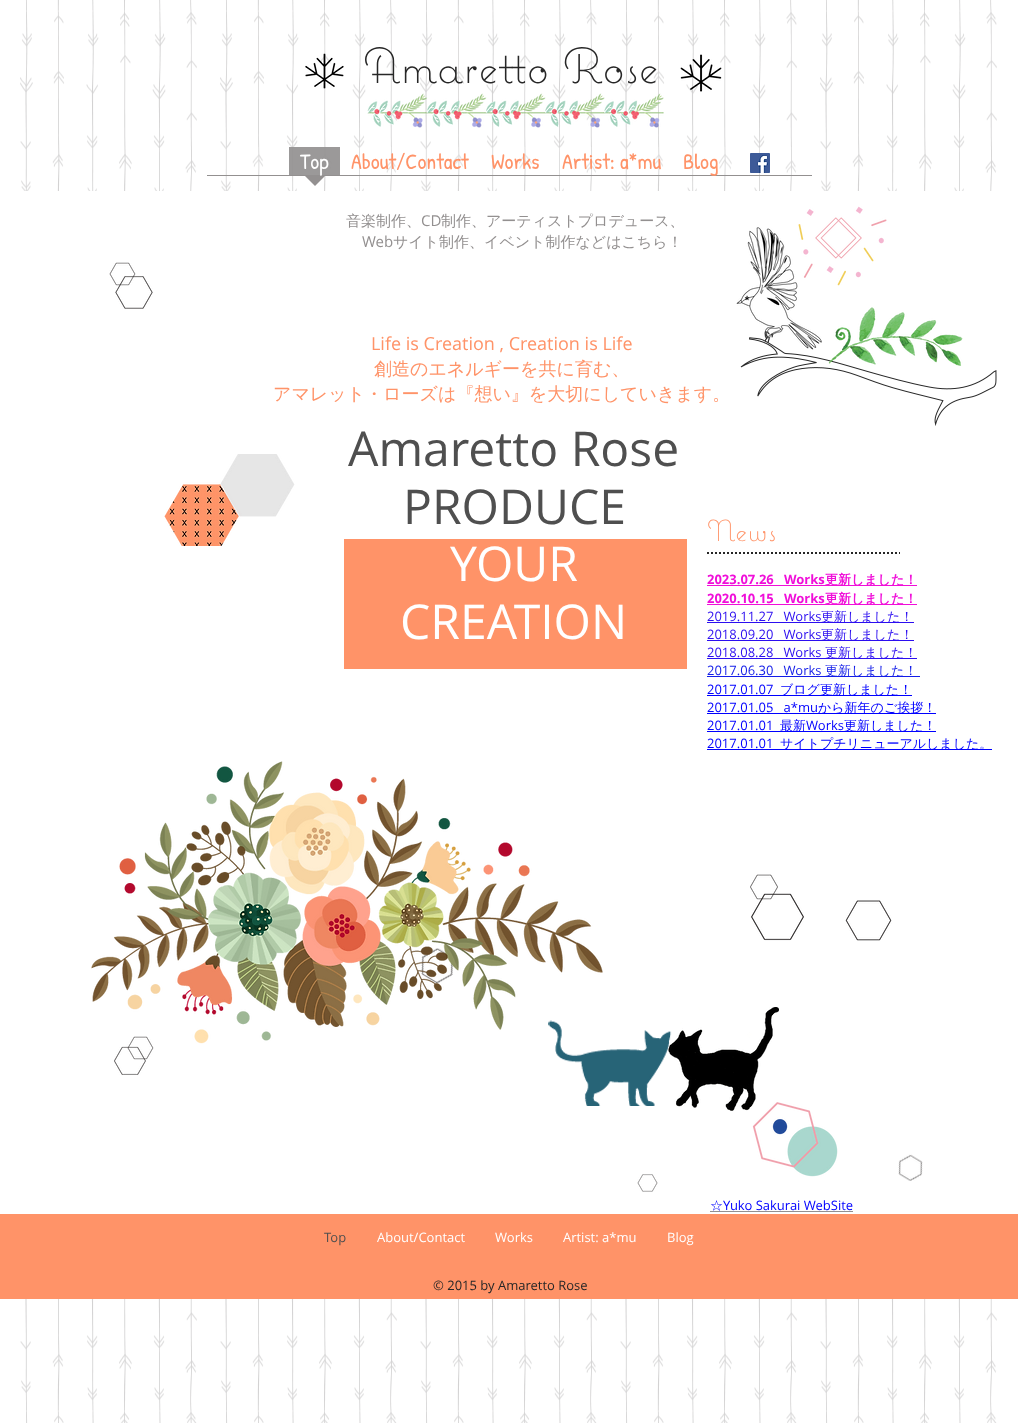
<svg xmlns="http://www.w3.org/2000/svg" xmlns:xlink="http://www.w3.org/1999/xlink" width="1018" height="1423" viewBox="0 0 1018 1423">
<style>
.cls-1{font:300 50px 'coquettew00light';fill:#272727}
.cls-2{font:22px Patrick Hand;fill:#ffffff}
.cls-3{font:22px Patrick Hand;fill:#ff9368}
.cls-4{font:500 15px WenQuanYi Zen Hei;fill:#939090}
.cls-5{font:15px Open Sans;fill:#939090}
.cls-6{font:18px Open Sans;fill:#ff9368}
.cls-7{font:500 18px WenQuanYi Zen Hei;fill:#ff9368}
.cls-8{font:48px Open Sans;fill:#4f4f4f}
.cls-9{font:48px Open Sans;fill:#ffffff}
.cls-10{font:300 30px 'coquettew00light';fill:#ff9368}
.cls-11{font:bold 13px Open Sans;fill:#f00ed9}
.cls-12{font:bold 13px WenQuanYi Zen Hei;fill:#f00ed9}
.cls-13{font:13px Open Sans;fill:#2c0ef0}
.cls-14{font:500 13px WenQuanYi Zen Hei;fill:#2c0ef0}
.cls-15{font:13px Open Sans;fill:#131de8}
.cls-16{font:500 13px WenQuanYi Zen Hei;fill:#131de8}
.cls-17{font:13px Open Sans;fill:#0000ff}
.cls-18{font:500 13px WenQuanYi Zen Hei;fill:#0000ff}
.cls-19{font:13px Open Sans;fill:#4f4f4f}
.cls-20{font:13px Open Sans;fill:#ffffff}
.cls-21{font:13px Open Sans;fill:#272727}
</style>
<rect width="100%" height="100%" fill="#ffffff"/>
<image xlink:href="image0.png" x="20" y="0" width="977" height="1423"/>
<image xlink:href="image1.png" x="305" y="53" width="39" height="36"/>
<image xlink:href="image2.png" x="680" y="54" width="42" height="38"/>
<image xlink:href="image3.png" x="367" y="93" width="297" height="35"/>
<rect fill="#ffffff" fill-opacity="0.15" x="225" y="147" width="571" height="28"/>
<rect fill="#939090" x="207" y="175" width="605" height="1"/>
<rect fill="#939090" fill-opacity="0.92" x="289" y="147" width="51" height="28"/>
<path fill="#939090" d="M304 175H326L315 186Z"/>
<image xlink:href="image4.png" x="750" y="153" width="20" height="20"/>
<rect fill="#ffffff" x="20" y="191" width="977" height="1023"/>
<image xlink:href="image8.png" x="115" y="276" width="38" height="33"/>
<image xlink:href="image5.png" x="109" y="262" width="27" height="24"/>
<image xlink:href="image6.png" x="736" y="227" width="86" height="123"/>
<image xlink:href="image7.png" x="798" y="206" width="89" height="80"/>
<image xlink:href="image10.png" x="740" y="337" width="257" height="89"/>
<image xlink:href="image9.png" x="828" y="307" width="135" height="59"/>
<image xlink:href="image11.png" x="164" y="454" width="131" height="92"/>
<rect fill="#ff9368" x="344" y="539" width="343" height="130"/>
<path fill="none" stroke="#272727" stroke-width="2" stroke-dasharray="2 2" d="M707 553H900"/>
<rect fill="#f00ed9" x="707" y="585" width="210" height="1"/>
<rect fill="#f00ed9" x="707" y="604" width="210" height="1"/>
<rect fill="#2c0ef0" x="707" y="622" width="207" height="1"/>
<rect fill="#2c0ef0" x="707" y="640" width="207" height="1"/>
<rect fill="#2c0ef0" x="707" y="658" width="210" height="1"/>
<rect fill="#131de8" x="707" y="676" width="213" height="1"/>
<rect fill="#0000ff" x="707" y="695" width="205" height="1"/>
<rect fill="#0000ff" x="707" y="713" width="229" height="1"/>
<rect fill="#0000ff" x="707" y="731" width="229" height="1"/>
<rect fill="#0000ff" x="707" y="749" width="285" height="1"/>
<image xlink:href="image16.png" x="421" y="948" width="32" height="36"/>
<image xlink:href="image20.png" x="114" y="1046" width="32" height="29"/>
<image xlink:href="image17.png" x="127" y="1036" width="27" height="24"/>
<image xlink:href="image21.png" x="752" y="1102" width="86" height="75"/>
<image xlink:href="image19.png" x="668" y="1007" width="111" height="104"/>
<image xlink:href="image18.png" x="548" y="1020" width="124" height="86"/>
<image xlink:href="image12.png" x="91" y="761" width="512" height="283"/>
<image xlink:href="image14.png" x="751" y="893" width="53" height="48"/>
<image xlink:href="image13.png" x="750" y="874" width="28" height="26"/>
<image xlink:href="image15.png" x="845" y="900" width="47" height="41"/>
<image xlink:href="image22.png" x="898" y="1154" width="25" height="27"/>
<image xlink:href="image23.png" x="637" y="1174" width="21" height="18"/>
<rect fill="#939090" x="710" y="1211" width="143" height="1"/>
<rect fill="#ff9368" x="0" y="1214" width="1018" height="85"/>
<text class="cls-1" x="363" y="83">Amaretto Rose</text>
<text class="cls-2" x="300" y="169">Top</text>
<text class="cls-3" x="351" y="169">About/Contact</text>
<text class="cls-3" x="491" y="169">Works</text>
<text class="cls-3" x="562" y="169">Artist: a*mu</text>
<text class="cls-3" x="683" y="169">Blog</text>
<text class="cls-4" x="346" y="226">音楽制作、</text>
<text class="cls-5" x="421" y="226">CD</text>
<text class="cls-4" x="441" y="226">制作、アーティストプロデュース、</text>
<text class="cls-5" x="362" y="247">Web</text>
<text class="cls-4" x="393" y="247">サイト制作、イベント制作などはこちら！</text>
<text class="cls-6" x="371" y="350">Life is Creation , Creation is Life</text>
<text class="cls-7" x="374" y="375">創造のエネルギーを共に育む、</text>
<text class="cls-7" x="273" y="400">アマレット・ローズは『想い』を大切にしていきます。</text>
<text class="cls-8" x="348" y="466">Amaretto Rose</text>
<text class="cls-8" x="403" y="524">PRODUCE</text>
<text class="cls-9" x="450" y="581">YOUR</text>
<text class="cls-9" x="400" y="639">CREATION</text>
<text class="cls-10" x="707" y="541">News</text>
<text class="cls-11" xml:space="preserve" x="707" y="584">2023.07.26   Works</text>
<text class="cls-12" x="825" y="584">更新しました！</text>
<text class="cls-11" xml:space="preserve" x="707" y="603">2020.10.15   Works</text>
<text class="cls-12" x="825" y="603">更新しました！</text>
<text class="cls-13" xml:space="preserve" x="707" y="621">2019.11.27   Works</text>
<text class="cls-14" x="821" y="621">更新しました！</text>
<text class="cls-13" xml:space="preserve" x="707" y="639">2018.09.20   Works</text>
<text class="cls-14" x="821" y="639">更新しました！</text>
<text class="cls-13" xml:space="preserve" x="707" y="657">2018.08.28   Works</text>
<text class="cls-14" x="825" y="657">更新しました！</text>
<text class="cls-15" xml:space="preserve" x="707" y="675">2017.06.30   Works</text>
<text class="cls-16" x="825" y="675">更新しました！</text>
<text class="cls-17" x="707" y="694">2017.01.07</text>
<text class="cls-18" x="780" y="694">ブログ更新しました！</text>
<text class="cls-17" xml:space="preserve" x="707" y="712">2017.01.05   a*mu</text>
<text class="cls-18" x="818" y="712">から新年のご挨拶！</text>
<text class="cls-17" x="707" y="730">2017.01.01</text>
<text class="cls-18" x="780" y="730">最新</text>
<text class="cls-17" x="806" y="730">Works</text>
<text class="cls-18" x="844" y="730">更新しました！</text>
<text class="cls-17" x="707" y="748">2017.01.01</text>
<text class="cls-18" x="780" y="748">サイトプチリニューアルしました。</text>
<text class="cls-18" x="710" y="1210">☆</text>
<text class="cls-17" x="723" y="1210">Yuko Sakurai WebSite</text>
<text class="cls-19" x="324" y="1242">Top</text>
<text class="cls-20" x="377" y="1242">About/Contact</text>
<text class="cls-20" x="495" y="1242">Works</text>
<text class="cls-20" x="563" y="1242">Artist: a*mu</text>
<text class="cls-20" x="667" y="1242">Blog</text>
<text class="cls-21" x="433" y="1290">© 2015 by Amaretto Rose</text>
</svg>
